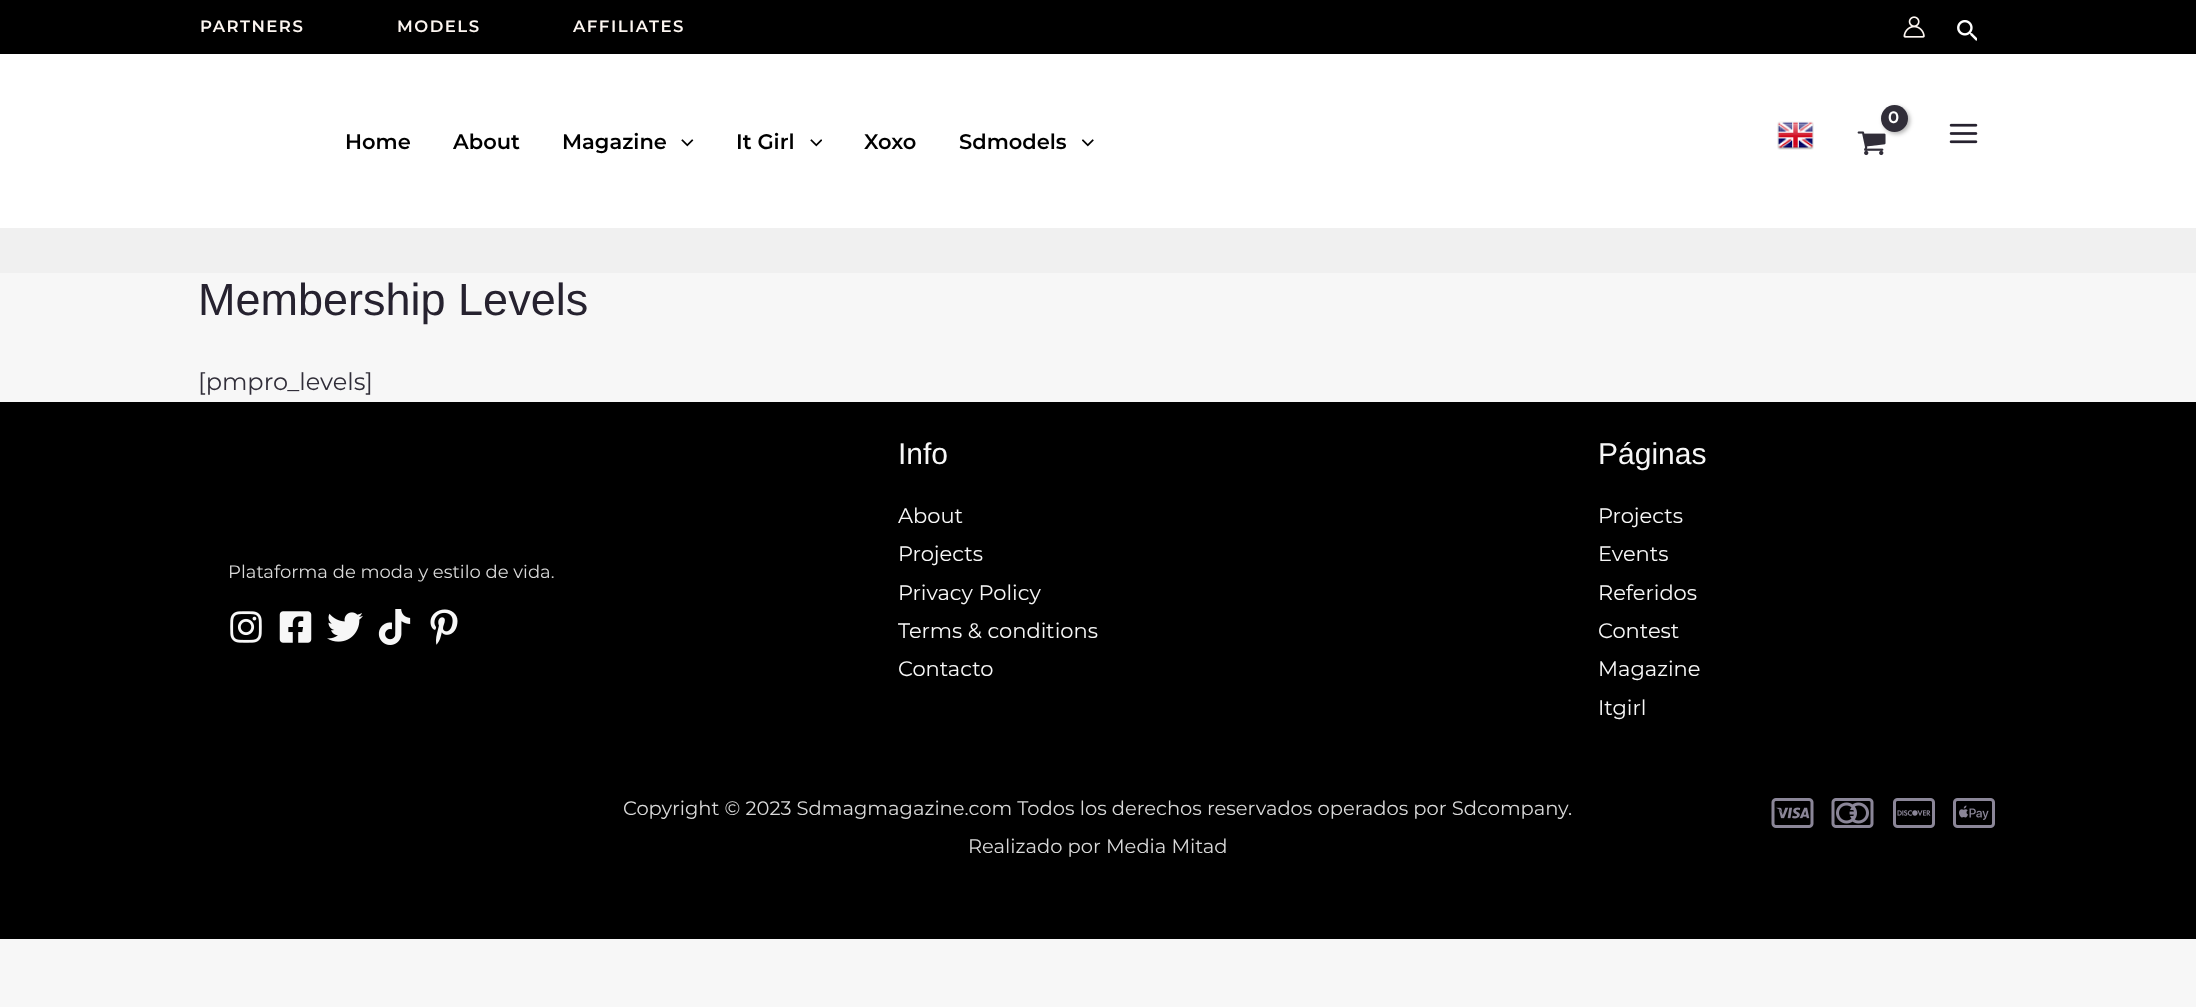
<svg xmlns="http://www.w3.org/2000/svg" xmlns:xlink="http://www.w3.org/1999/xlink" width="2196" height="1007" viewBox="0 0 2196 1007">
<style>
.cls-1{font:600 16.5px Montserrat;letter-spacing:1.5px;fill:#fdf6f1}
.cls-2{font:600 16.5px Montserrat;letter-spacing:-1px;fill:#ffffff}
.cls-3{font:600 21px Montserrat;fill:#000000}
.cls-4{font:45px Liberation Sans;fill:#26222f}
.cls-5{font:24px Montserrat;fill:#312e39}
.cls-6{font:18px Montserrat;fill:#d9d9d9}
.cls-7{font:30px Liberation Sans;fill:#f7f7f7}
.cls-8{font:21px Montserrat;fill:#f7f7f7}
.cls-9{font:19.5px Montserrat;fill:#d9d9d9}
</style>
<rect width="100%" height="100%" fill="#f7f7f7"/>
<rect fill="#000000" x="0" y="0" width="2196" height="54"/>
<image xlink:href="image0.png" x="1903" y="16" width="22" height="22"/>
<image xlink:href="image1.png" x="1957" y="20" width="20" height="21"/>
<rect fill="#ffffff" x="0" y="54" width="2196" height="174"/>
<image xlink:href="image2.png" x="1857" y="131" width="29" height="25"/>
<rect fill="#000000" fill-opacity="0.3" filter="blur(2px)" x="1883" y="107" width="27" height="27" rx="13.5"/>
<circle fill="#312e39" cx="1894.5" cy="118.5" r="13.5"/>
<image xlink:href="image3.png" x="1777" y="121" width="37" height="29"/>
<image xlink:href="image4.png" x="1949" y="123" width="29" height="21"/>
<image xlink:href="image5.png" x="681" y="139" width="13" height="8"/>
<image xlink:href="image6.png" x="810" y="139" width="12" height="8"/>
<image xlink:href="image7.png" x="1082" y="139" width="12" height="8"/>
<rect fill="#f0f0f0" x="0" y="228" width="2196" height="45"/>
<rect fill="#000000" x="0" y="402" width="2196" height="356"/>
<image xlink:href="image8.png" x="230" y="611" width="32" height="32"/>
<image xlink:href="image9.png" x="279" y="611" width="33" height="32"/>
<image xlink:href="image10.png" x="327" y="612" width="36" height="30"/>
<image xlink:href="image11.png" x="378" y="609" width="33" height="36"/>
<image xlink:href="image12.png" x="430" y="609" width="28" height="36"/>
<rect fill="#000000" x="0" y="758" width="2196" height="181"/>
<image xlink:href="image13.png" x="1771" y="798" width="43" height="30"/>
<image xlink:href="image14.png" x="1831" y="798" width="43" height="30"/>
<image xlink:href="image15.png" x="1893" y="798" width="42" height="30"/>
<image xlink:href="image16.png" x="1953" y="798" width="42" height="30"/>
<text class="cls-1" x="200" y="32">PARTNERS</text>
<text class="cls-1" x="397" y="32">MODELS</text>
<text class="cls-1" x="573" y="32">AFFILIATES</text>
<text class="cls-2" x="1888" y="123">0</text>
<text class="cls-3" x="345" y="149">Home</text>
<text class="cls-3" x="453" y="149">About</text>
<text class="cls-3" x="562" y="149">Magazine</text>
<text class="cls-3" x="736" y="149">It Girl</text>
<text class="cls-3" x="864" y="149">Xoxo</text>
<text class="cls-3" x="959" y="149">Sdmodels</text>
<text class="cls-4" x="198" y="315">Membership Levels</text>
<text class="cls-5" x="198" y="390">[pmpro_levels]</text>
<text class="cls-6" x="228" y="578">Plataforma de moda y estilo de vida.</text>
<text class="cls-7" x="898" y="464">Info</text>
<text class="cls-8"><tspan x="898" y="523">About</tspan><tspan x="898" y="561">Projects</tspan><tspan x="898" y="600">Privacy Policy</tspan><tspan x="898" y="638">Terms &amp; conditions</tspan><tspan x="898" y="676">Contacto</tspan></text>
<text class="cls-7" x="1598" y="464">Páginas</text>
<text class="cls-8"><tspan x="1598" y="523">Projects</tspan><tspan x="1598" y="561">Events</tspan><tspan x="1598" y="600">Referidos</tspan><tspan x="1598" y="638">Contest</tspan><tspan x="1598" y="676">Magazine</tspan><tspan x="1598" y="715">Itgirl</tspan></text>
<text class="cls-9" x="623" y="815">Copyright © 2023 Sdmagmagazine.com Todos los derechos reservados operados por Sdcompany.</text>
<text class="cls-9" x="968" y="853">Realizado por Media Mitad</text>
</svg>
